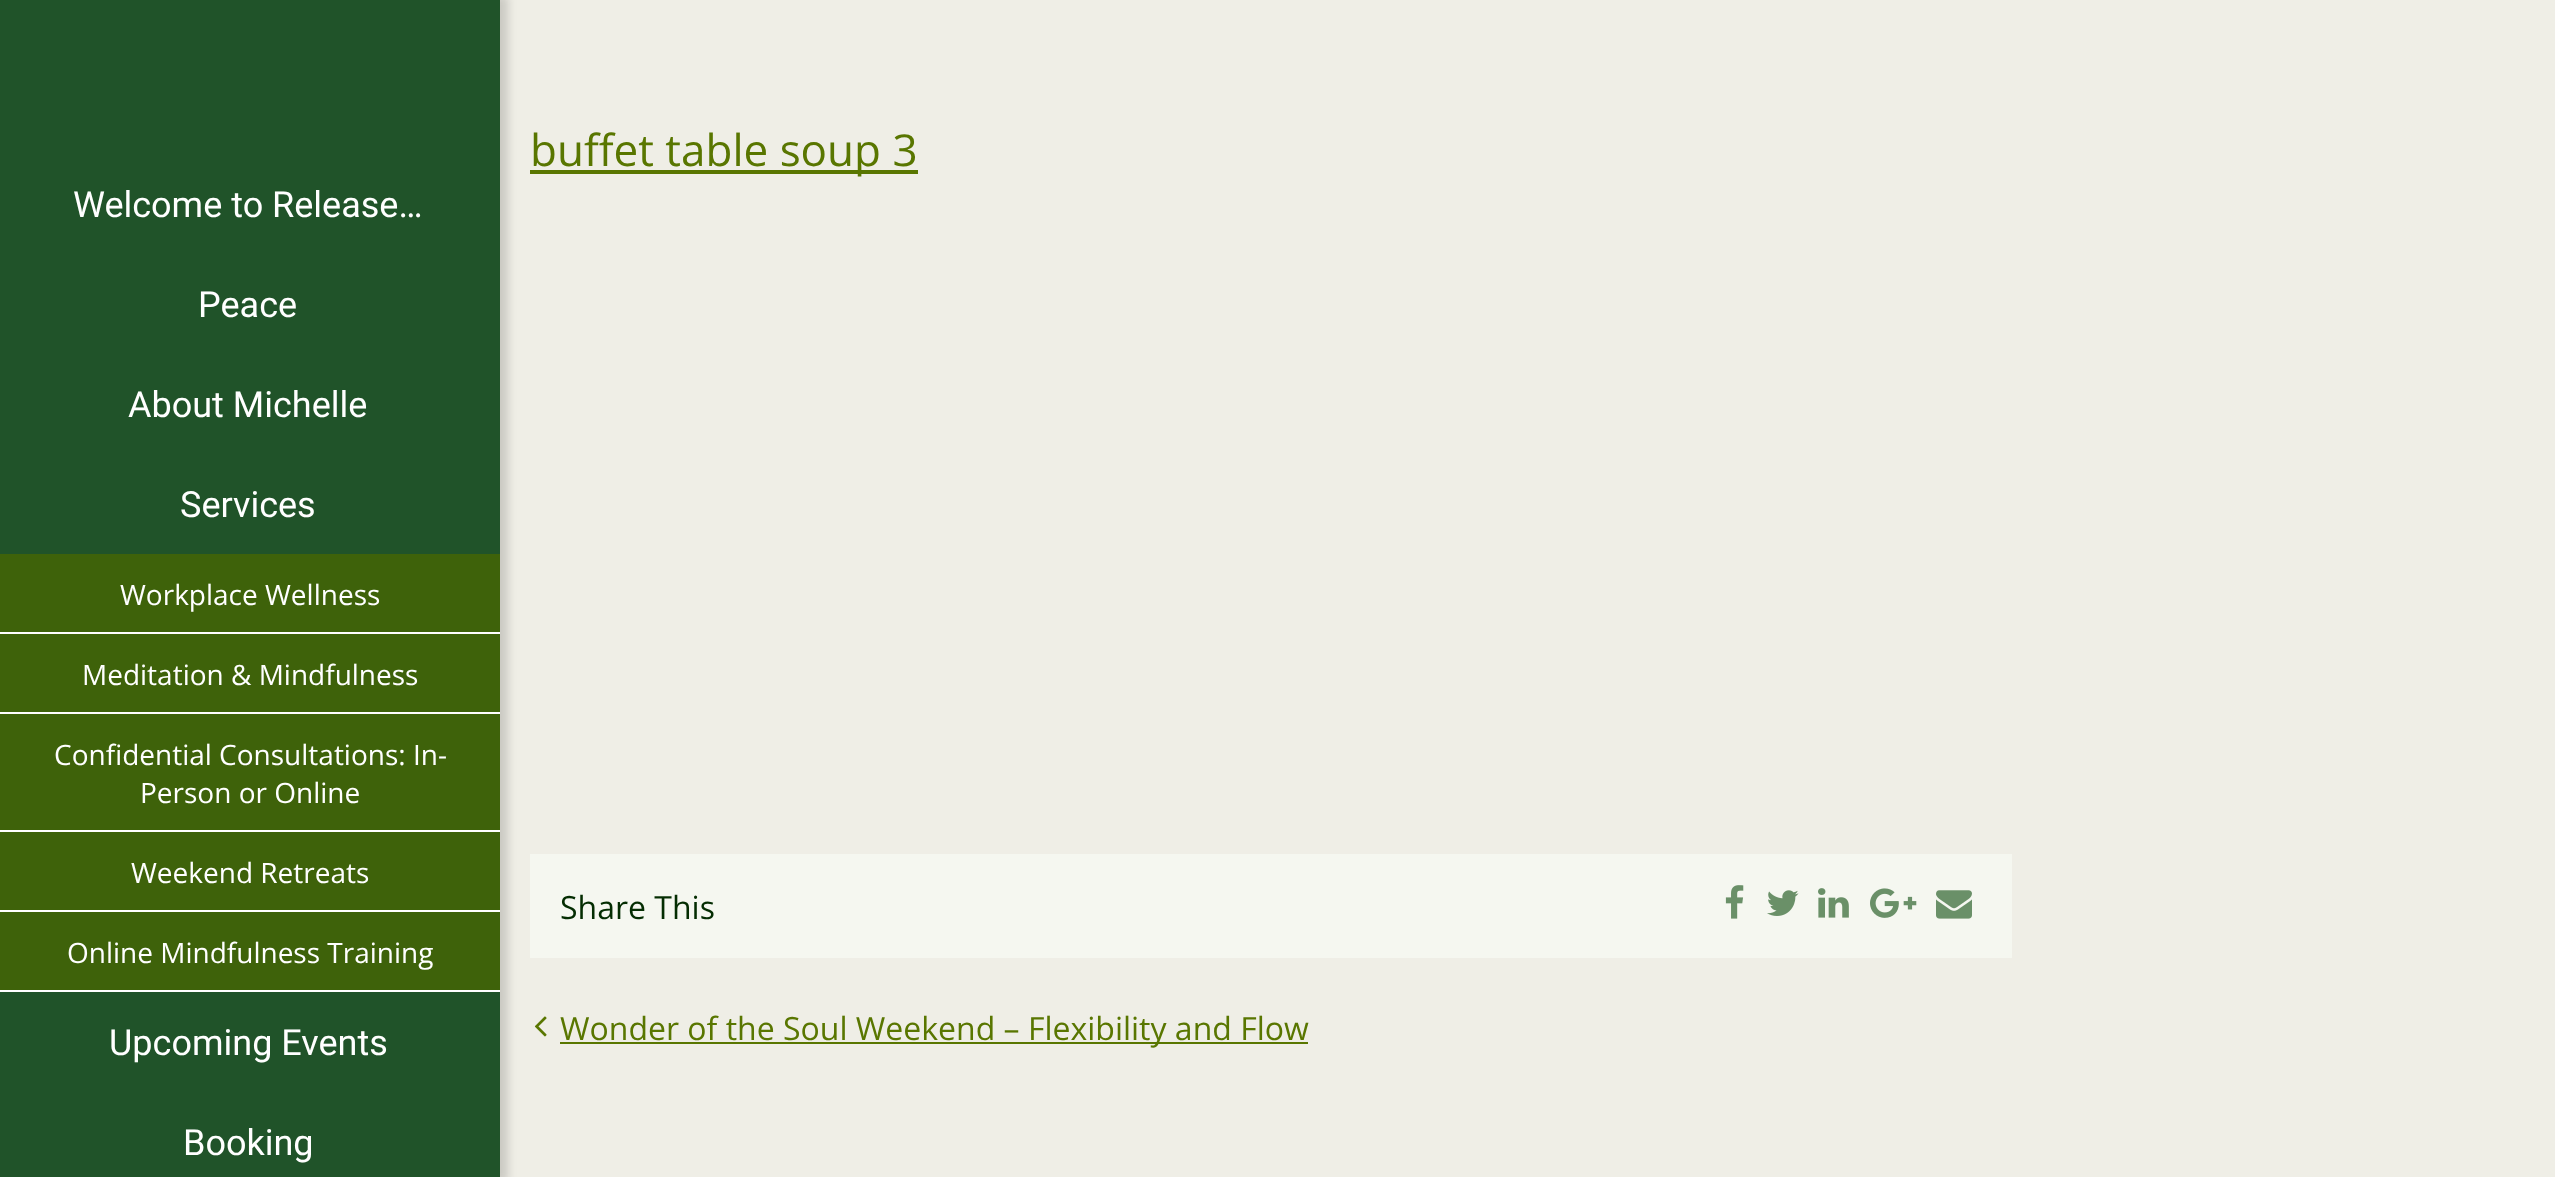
<svg xmlns="http://www.w3.org/2000/svg" xmlns:xlink="http://www.w3.org/1999/xlink" width="2555" height="1177" viewBox="0 0 2555 1177">
<style>
.cls-1{font:36px Roboto;fill:#ffffff}
.cls-2{font:28px Open Sans;fill:#ffffff}
.cls-3{font:44px Open Sans;fill:#597600}
.cls-4{font:32px Open Sans;fill:#042d02}
.cls-5{font:32px Open Sans;fill:#597600}
</style>
<rect width="100%" height="100%" fill="#efeee6"/>
<rect fill="#000000" fill-opacity="0.15" filter="blur(4px)" x="0" y="-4" width="508" height="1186"/>
<rect fill="#205329" x="0" y="0" width="500" height="1177"/>
<rect fill="#3e620a" x="0" y="554" width="500" height="78"/>
<rect fill="#ffffff" x="0" y="632" width="500" height="2"/>
<rect fill="#3e620a" x="0" y="634" width="500" height="78"/>
<rect fill="#ffffff" x="0" y="712" width="500" height="2"/>
<rect fill="#3e620a" x="0" y="714" width="500" height="116"/>
<rect fill="#ffffff" x="0" y="830" width="500" height="2"/>
<rect fill="#3e620a" x="0" y="832" width="500" height="78"/>
<rect fill="#ffffff" x="0" y="910" width="500" height="2"/>
<rect fill="#3e620a" x="0" y="912" width="500" height="78"/>
<rect fill="#ffffff" x="0" y="990" width="500" height="2"/>
<rect fill="#597600" x="530" y="170" width="388" height="4"/>
<rect fill="#f5f7f0" x="530" y="854" width="1482" height="104"/>
<image xlink:href="image0.png" x="1725" y="885" width="19" height="34"/>
<image xlink:href="image1.png" x="1767" y="890" width="32" height="26"/>
<image xlink:href="image2.png" x="1818" y="888" width="31" height="30"/>
<image xlink:href="image3.png" x="1870" y="888" width="47" height="30"/>
<image xlink:href="image4.png" x="1936" y="890" width="36" height="29"/>
<image xlink:href="image5.png" x="534" y="1016" width="13" height="21"/>
<rect fill="#597600" x="560" y="1042" width="748" height="2"/>
<text class="cls-1" x="73" y="217">Welcome to Release…</text>
<text class="cls-1" x="198" y="317">Peace</text>
<text class="cls-1" x="128" y="417">About Michelle</text>
<text class="cls-1" x="180" y="517">Services</text>
<text class="cls-2" x="120" y="605">Workplace Wellness</text>
<text class="cls-2" x="82" y="685">Meditation &amp; Mindfulness</text>
<text class="cls-2" x="54" y="765">Confidential Consultations: In-</text>
<text class="cls-2" x="140" y="803">Person or Online</text>
<text class="cls-2" x="131" y="883">Weekend Retreats</text>
<text class="cls-2" x="67" y="963">Online Mindfulness Training</text>
<text class="cls-1" x="109" y="1055">Upcoming Events</text>
<text class="cls-1" x="183" y="1155">Booking</text>
<text class="cls-3" x="530" y="166">buffet table soup 3</text>
<text class="cls-4" x="560" y="919">Share This</text>
<text class="cls-5" x="560" y="1040">Wonder of the Soul Weekend – Flexibility and Flow</text>
</svg>
